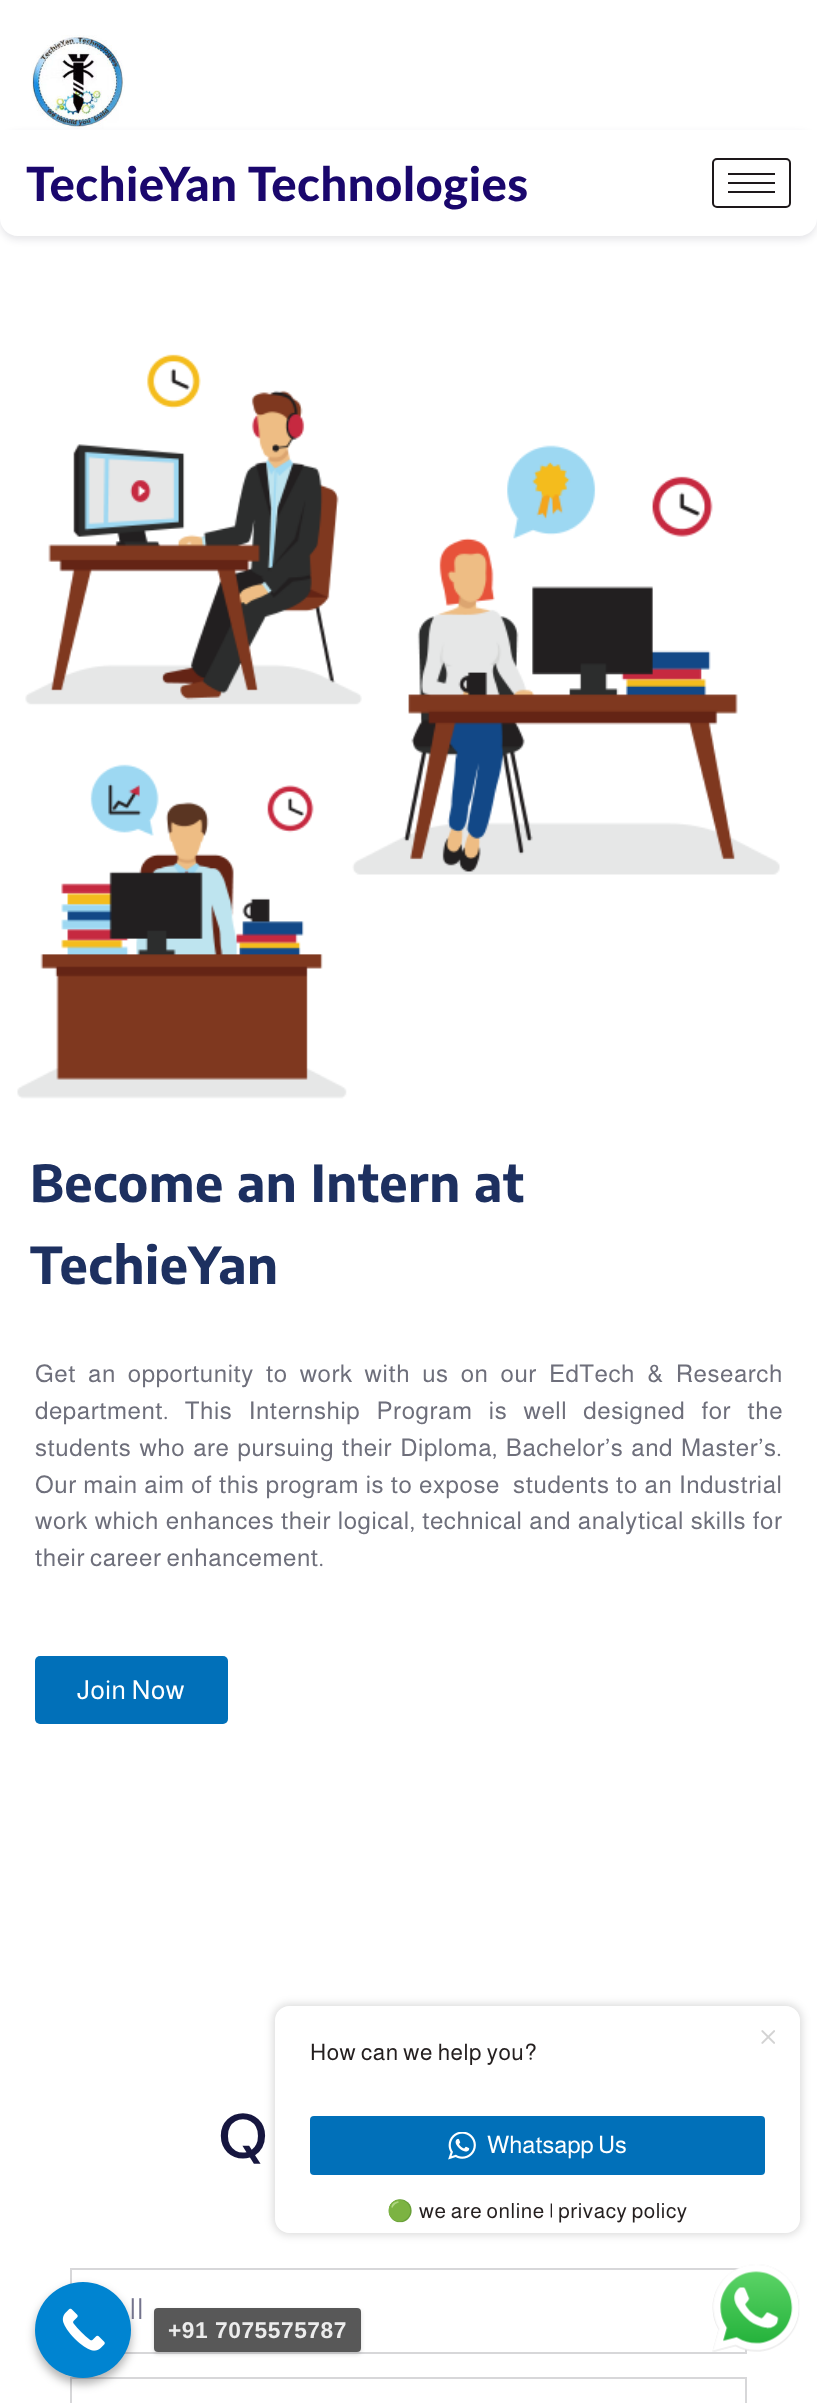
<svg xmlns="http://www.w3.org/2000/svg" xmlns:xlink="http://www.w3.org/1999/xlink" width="817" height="2403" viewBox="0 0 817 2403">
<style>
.cls-1{font:900 47.25px Lato;letter-spacing:0.53px;fill:#1a076d}
.cls-2{font:bold 50.75px Encode Sans;letter-spacing:0.53px;fill:#1d3060}
.cls-3{font:24.5px Almarai;letter-spacing:0.53px;fill:#6e6f7b}
.cls-4{font:26.25px Almarai;letter-spacing:0.53px;fill:#ffffff}
.cls-5{font:60px Alata;letter-spacing:0.53px;fill:#16163f}
.cls-6{font:28px Montserrat;fill:#73738c}
.cls-7{font:22.75px Almarai;letter-spacing:0.53px;fill:#241f1f}
.cls-8{font:24px Almarai;fill:#ffffff}
.cls-9{font:21px Noto Color Emoji;letter-spacing:0.53px;fill:#241f1f}
.cls-10{font:21px Almarai;letter-spacing:0.53px;fill:#241f1f}
.cls-11{font:bold 22.75px Liberation Sans;letter-spacing:0.53px;fill:#ececec}
</style>
<defs>
<clipPath id="clip1"><path d="M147 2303H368V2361H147ZM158 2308H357C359 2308 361 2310 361 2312V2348C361 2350 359 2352 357 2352H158C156 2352 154 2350 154 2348V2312C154 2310 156 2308 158 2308Z" clip-rule="evenodd"/></clipPath>
</defs>
<rect width="100%" height="100%" fill="#ffffff"/>
<image xlink:href="image0.png" x="31" y="35" width="94" height="94"/>
<rect fill="#111633" fill-opacity="0.1" filter="blur(3.5px)" x="0" y="133" width="817" height="107" rx="18"/>
<path fill="#ffffff" d="M0 130H817V218C817 228 809 236 799 236H18C8 236 0 228 0 218Z"/>
<rect fill="none" stroke="#1d181a" stroke-width="2" x="713" y="159" width="77" height="48" rx="4"/>
<rect fill="#1d181a" x="728" y="173" width="47" height="2"/>
<rect fill="#1d181a" x="728" y="182" width="47" height="2"/>
<rect fill="#1d181a" x="728" y="191" width="47" height="2"/>
<image xlink:href="image1.png" x="17" y="354" width="763" height="745"/>
<rect fill="#0170b9" x="35" y="1656" width="193" height="68" rx="5"/>
<rect fill="none" stroke="#d7d7d9" stroke-width="2" x="71" y="2269" width="675" height="84"/>
<rect fill="none" stroke="#d7d7d9" stroke-width="2" x="71" y="2378" width="675" height="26"/>
<rect fill="#000000" fill-opacity="0.14" filter="blur(4.5px)" x="273" y="2004" width="529" height="231" rx="16"/>
<path fill="#ffffff" d="M289 2006H786C793.5 2006 800 2012.5 800 2020V2098H275V2020C275 2012.5 281.5 2006 289 2006Z"/>
<image xlink:href="image2.png" x="761" y="2030" width="14" height="14"/>
<rect fill="#ffffff" x="275" y="2098" width="525" height="91"/>
<rect fill="#0170b9" x="310" y="2116" width="455" height="59" rx="4"/>
<image xlink:href="image3.png" x="448" y="2132" width="28" height="28"/>
<path fill="#ffffff" d="M275 2189H800V2219C800 2226.5 793.5 2233 786 2233H289C281.5 2233 275 2226.5 275 2219Z"/>
<image xlink:href="image4.png" x="712" y="2264" width="88" height="88"/>
<rect fill="#000000" fill-opacity="0.3" filter="blur(5px)" x="35" y="2287" width="96" height="97" rx="48"/>
<circle fill="#0084d1" cx="83" cy="2330" r="48"/>
<image xlink:href="image5.png" x="62" y="2308" width="43" height="43"/>
<g clip-path="url(#clip1)">
<rect fill="#000000" fill-opacity="0.15" filter="blur(2px)" x="154" y="2310" width="207" height="44" rx="4"/>
</g>
<rect fill="#464646" fill-opacity="0.9" x="154" y="2308" width="207" height="44" rx="4"/>
<text class="cls-1" x="26" y="201">TechieYan Technologies</text>
<text class="cls-2"><tspan x="30" y="1202">Become an Intern at</tspan><tspan x="30" y="1284">TechieYan</tspan></text>
<text class="cls-3" xml:space="preserve"><tspan x="35" y="1382" word-spacing="7">Get an opportunity to work with us on our EdTech &amp; Research</tspan><tspan x="35" y="1419" word-spacing="11.25">department. This Internship Program is well designed for the</tspan><tspan x="35" y="1456" word-spacing="3">students who are pursuing their Diploma, Bachelor’s and Master’s.</tspan><tspan x="35" y="1493" word-spacing="1.6">Our main aim of this program is to expose  students to an Industrial</tspan><tspan x="35" y="1529" word-spacing="1.75">work which enhances their logical, technical and analytical skills for</tspan><tspan x="35" y="1566">their career enhancement.</tspan></text>
<text class="cls-4" x="77" y="1699">Join Now</text>
<text class="cls-5" x="218" y="2158">Q</text>
<text class="cls-6" x="129" y="2319">ll</text>
<text class="cls-7" x="310" y="2060">How can we help you?</text>
<text class="cls-8" x="487" y="2153">Whatsapp Us</text>
<text class="cls-9" x="387" y="2218">🟢</text>
<text class="cls-10" x="419" y="2218">we are online | privacy policy</text>
<text class="cls-11" x="168" y="2338">+91 7075575787</text>
</svg>
